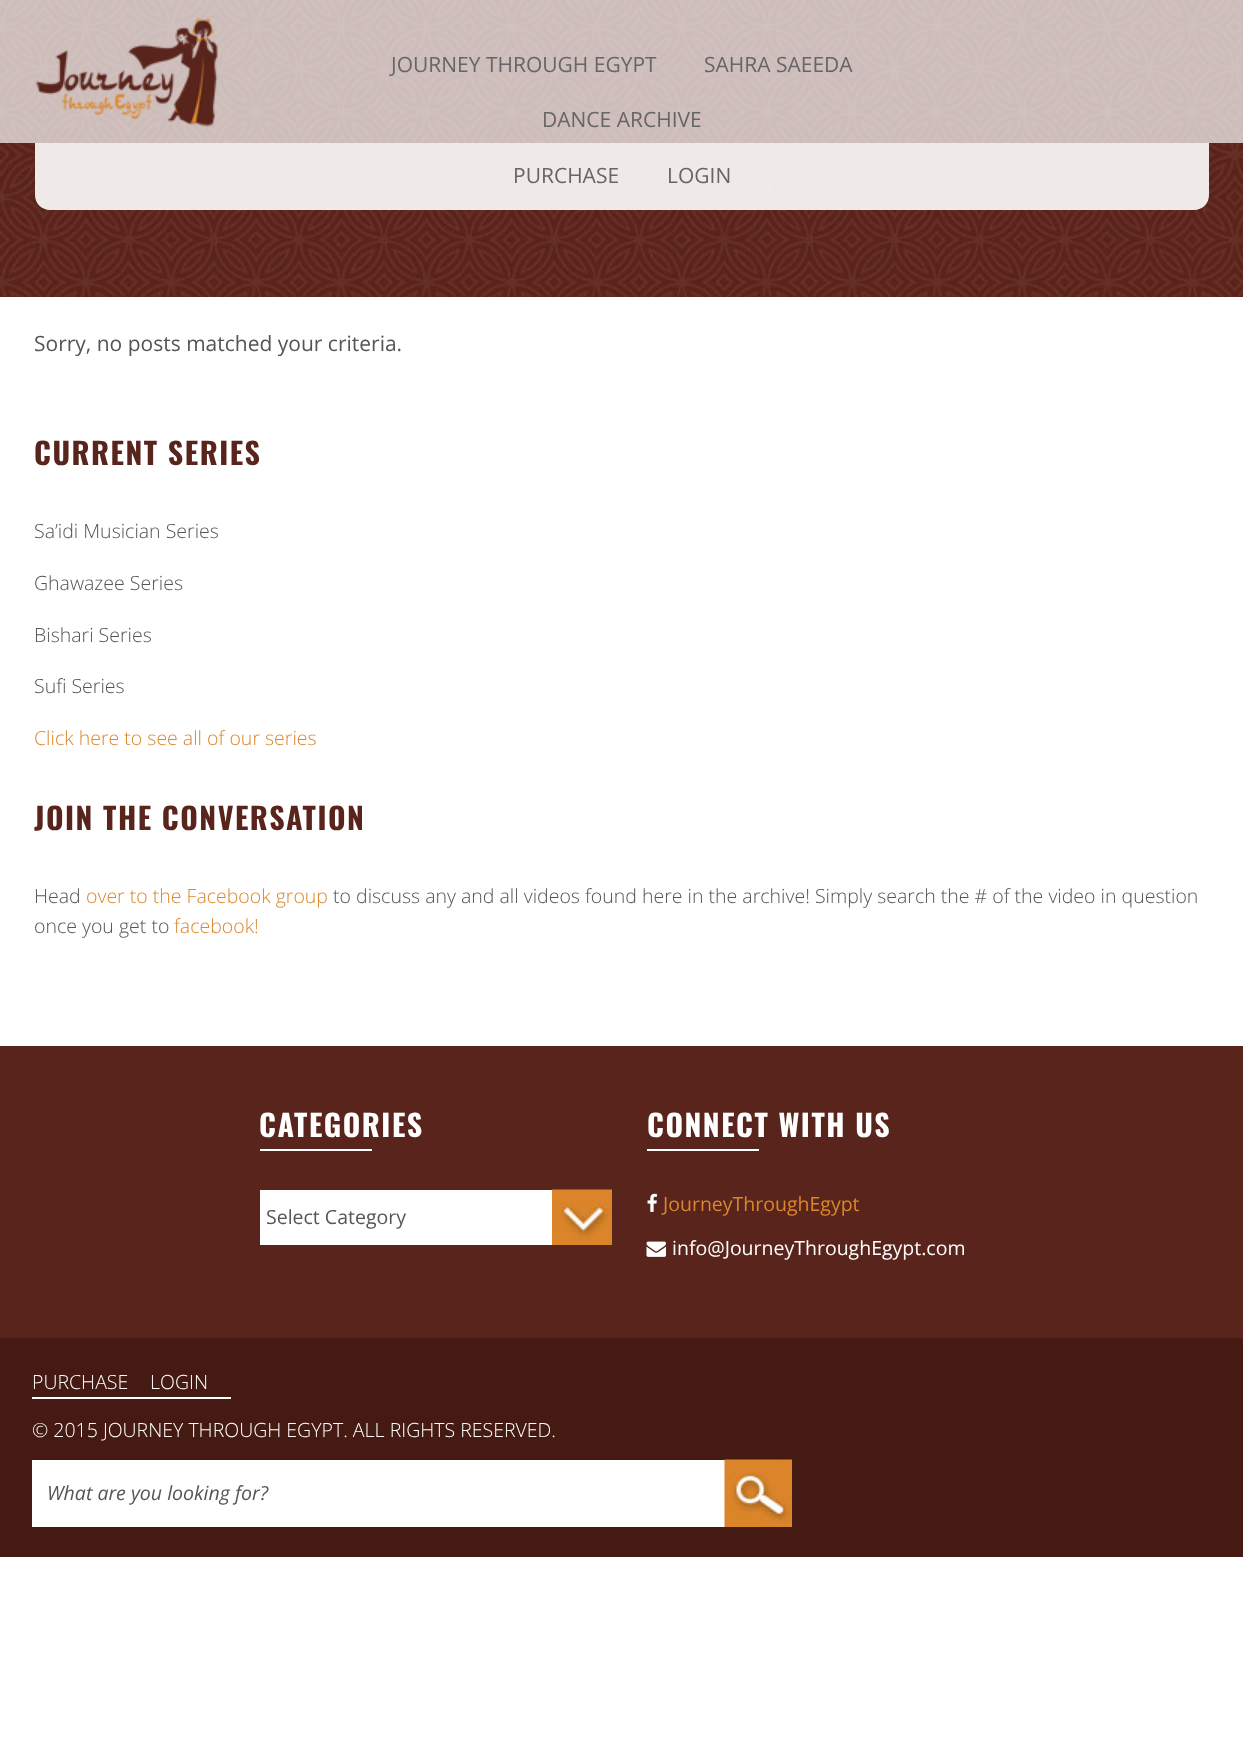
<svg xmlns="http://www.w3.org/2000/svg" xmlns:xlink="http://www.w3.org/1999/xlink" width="1243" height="1739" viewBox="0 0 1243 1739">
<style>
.cls-1{font:21px Open Sans;fill:#666666}
.cls-2{font:21px Open Sans;fill:#555555}
.cls-3{font:bold 30px Oswald;letter-spacing:1.5px;fill:#58241b}
.cls-4{font:300 19.5px Open Sans;fill:#555555}
.cls-5{font:300 19.5px Open Sans;fill:#dc872c}
.cls-6{font:bold 30px Oswald;letter-spacing:1.5px;fill:#ffffff}
.cls-7{font:19.5px Open Sans;fill:#555555}
.cls-8{font:19.5px Open Sans;fill:#dc872c}
.cls-9{font:19.5px Open Sans;fill:#ffffff}
.cls-10{font:300 19.5px Open Sans;fill:#ffffff}
.cls-11{font:italic 19.5px Open Sans;fill:#555555}
</style>
<rect width="100%" height="100%" fill="#ffffff"/>
<image xlink:href="image0.png" x="0" y="0" width="1243" height="297"/>
<rect fill="#ffffff" fill-opacity="0.7" x="0" y="0" width="1243" height="143"/>
<image xlink:href="image1.png" x="35" y="17" width="183" height="110"/>
<path fill="#ffffff" fill-opacity="0.9" d="M35 143H1209V195C1209 203.5 1202.5 210 1194 210H50C41.5 210 35 203.5 35 195Z"/>
<rect fill="#59241b" x="0" y="1046" width="1243" height="292"/>
<rect fill="#ffffff" x="260" y="1149" width="112" height="2"/>
<rect fill="#ffffff" x="260" y="1190" width="292" height="55"/>
<image xlink:href="image2.png" x="552" y="1189" width="60" height="56"/>
<rect fill="#ffffff" x="647" y="1149" width="112" height="2"/>
<image xlink:href="image3.png" x="647" y="1193" width="10" height="19"/>
<image xlink:href="image4.png" x="646" y="1241" width="20" height="16"/>
<rect fill="#441a13" x="0" y="1338" width="1243" height="219"/>
<rect fill="#ffffff" x="32" y="1397" width="199" height="2"/>
<rect fill="#ffffff" x="32" y="1460" width="693" height="67"/>
<image xlink:href="image5.png" x="724" y="1459" width="68" height="68"/>
<text class="cls-1" x="391" y="72">JOURNEY THROUGH EGYPT</text>
<text class="cls-1" x="704" y="72">SAHRA SAEEDA</text>
<text class="cls-1" x="542" y="127">DANCE ARCHIVE</text>
<text class="cls-1" x="513" y="183">PURCHASE</text>
<text class="cls-1" x="667" y="183">LOGIN</text>
<text class="cls-2" x="34" y="351">Sorry, no posts matched your criteria.</text>
<text class="cls-3" x="34" y="465">CURRENT SERIES</text>
<text class="cls-4" x="34" y="538">Sa’idi Musician Series</text>
<text class="cls-4" x="34" y="590">Ghawazee Series</text>
<text class="cls-4" x="34" y="642">Bishari Series</text>
<text class="cls-4" x="34" y="693">Sufi Series</text>
<text class="cls-5" x="34" y="745">Click here to see all of our series</text>
<text class="cls-3" x="34" y="830">JOIN THE CONVERSATION</text>
<text class="cls-4" x="34" y="903">Head</text>
<text class="cls-5" x="86" y="903">over to the Facebook group</text>
<text class="cls-4" x="333" y="903">to discuss any and all videos found here in the archive! Simply search the # of the video in question</text>
<text class="cls-4" x="34" y="933">once you get to</text>
<text class="cls-5" x="174" y="933">facebook!</text>
<text class="cls-6" x="259" y="1137">CATEGORIES</text>
<text class="cls-7" x="266" y="1224">Select Category</text>
<text class="cls-6" x="647" y="1137">CONNECT WITH US</text>
<text class="cls-8" x="663" y="1211">JourneyThroughEgypt</text>
<text class="cls-9" x="672" y="1255">info@JourneyThroughEgypt.com</text>
<text class="cls-10" x="32" y="1389">PURCHASE</text>
<text class="cls-10" x="150" y="1389">LOGIN</text>
<text class="cls-10" x="32" y="1437">© 2015 JOURNEY THROUGH EGYPT. ALL RIGHTS RESERVED.</text>
<text class="cls-11" x="47" y="1500">What are you looking for?</text>
</svg>
